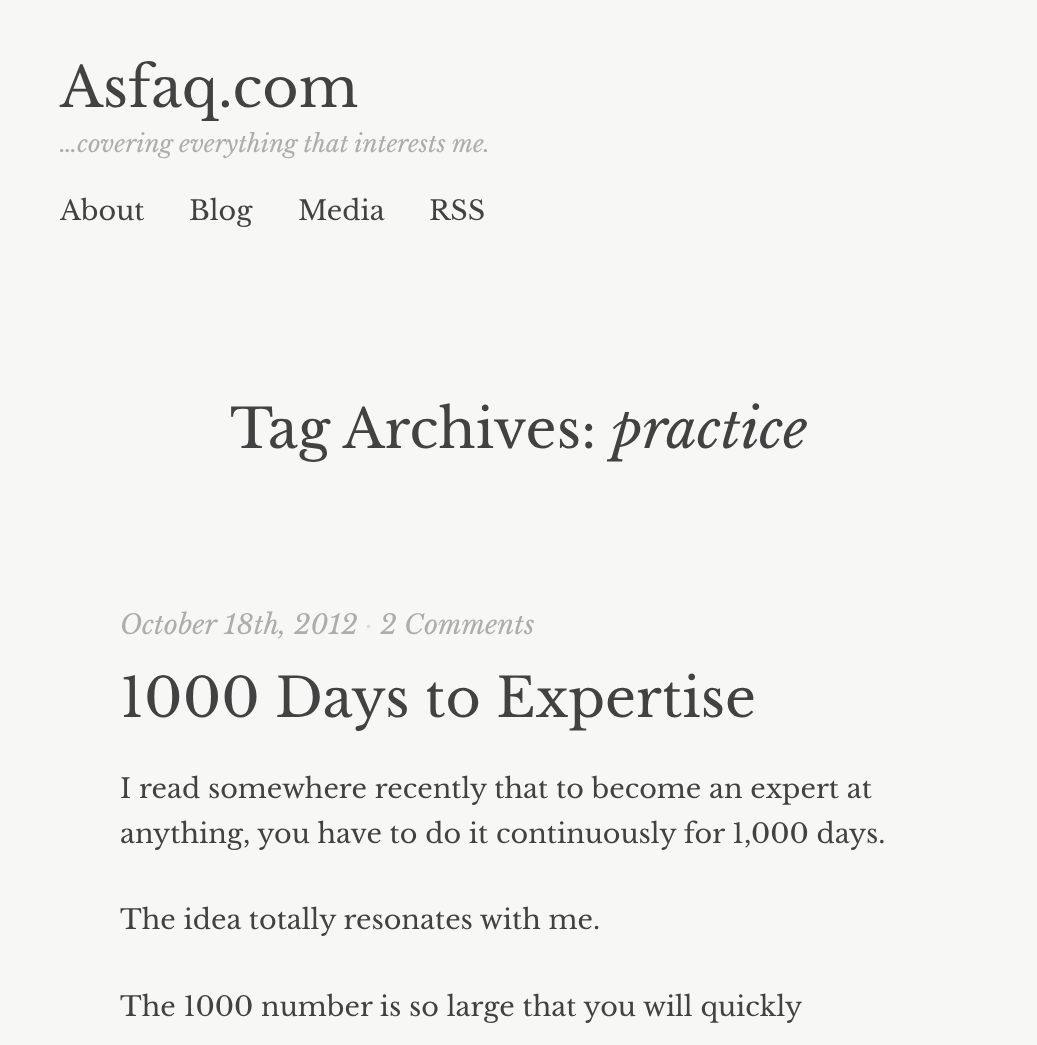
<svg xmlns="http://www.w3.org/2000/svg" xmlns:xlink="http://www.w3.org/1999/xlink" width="1037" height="1045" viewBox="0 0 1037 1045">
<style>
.cls-1{font:55.5px Libre Baskerville;fill:#424242}
.cls-2{font:italic 24px Libre Baskerville;fill:#adadae}
.cls-3{font:27px Libre Baskerville;fill:#424242}
.cls-4{font:54px Libre Baskerville;fill:#424242}
.cls-5{font:italic 54px Libre Baskerville;fill:#424242}
.cls-6{font:italic 27px Libre Baskerville;fill:#adadae}
.cls-7{font:italic 27px Libre Baskerville;fill:#dcdcdc}
</style>
<rect width="100%" height="100%" fill="#f7f7f5"/>
<text class="cls-1" x="60" y="107">Asfaq.com</text>
<text class="cls-2" x="60" y="152">…covering everything that interests me.</text>
<text class="cls-3" x="60" y="220">About</text>
<text class="cls-3" x="189" y="220">Blog</text>
<text class="cls-3" x="298" y="220">Media</text>
<text class="cls-3" x="429" y="220">RSS</text>
<text class="cls-4" x="230" y="448">Tag Archives:</text>
<text class="cls-5" x="612" y="448">practice</text>
<text class="cls-6" x="120" y="634">October 18th, 2012</text>
<text class="cls-7" x="365" y="634">·</text>
<text class="cls-6" x="380" y="634">2 Comments</text>
<text class="cls-4" x="120" y="717">1000 Days to Expertise</text>
<text class="cls-3"><tspan x="120" y="798">I read somewhere recently that to become an expert at</tspan><tspan x="120" y="843">anything, you have to do it continuously for 1,000 days.</tspan></text>
<text class="cls-3" x="120" y="929">The idea totally resonates with me.</text>
<text class="cls-3" x="120" y="1016">The 1000 number is so large that you will quickly</text>
</svg>
